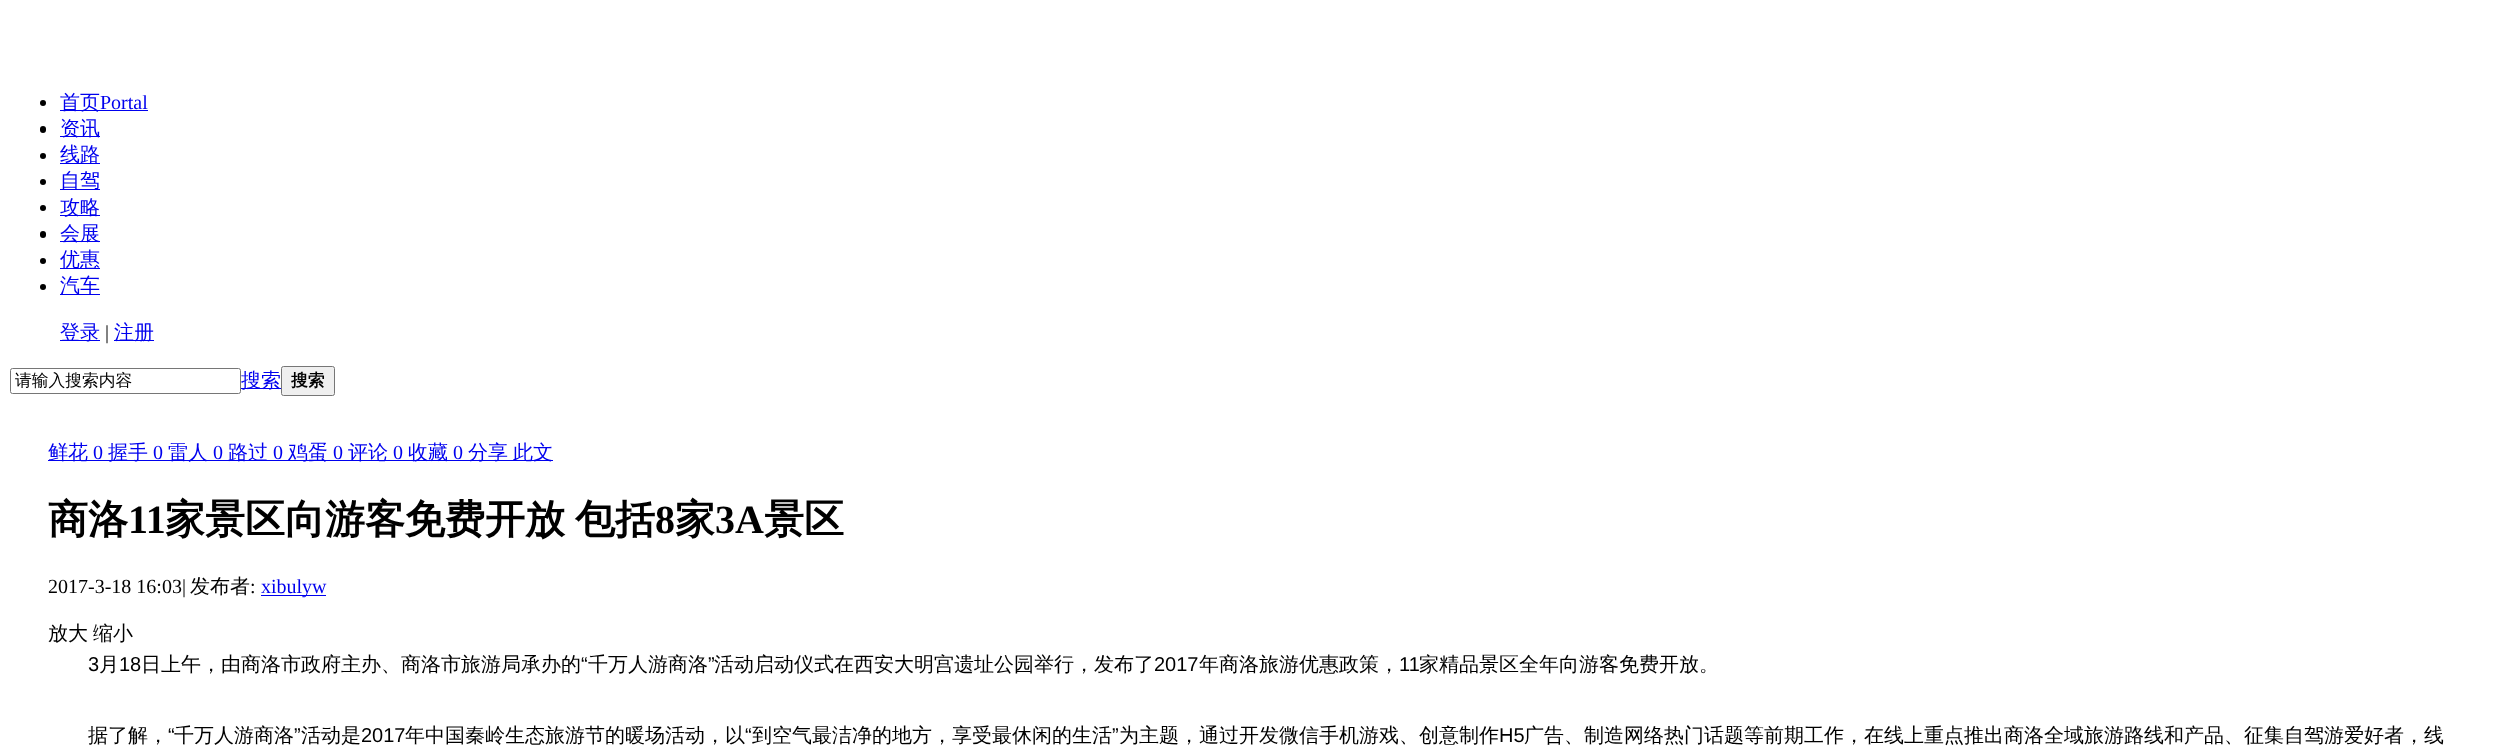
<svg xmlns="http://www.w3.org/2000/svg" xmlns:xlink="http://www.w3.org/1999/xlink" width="2494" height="755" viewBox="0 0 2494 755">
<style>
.cls-1{font:500 20px WenQuanYi Zen Hei;fill:#0000ee}
.cls-2{font:20px Liberation Serif;fill:#0000ee}
.cls-3{font:20px Liberation Serif;fill:#000000}
.cls-4{font:500 16.75px WenQuanYi Zen Hei;fill:#000000}
.cls-5{font:bold 16.75px WenQuanYi Zen Hei;fill:#000000}
.cls-6{font:bold 40px WenQuanYi Zen Hei;fill:#000000}
.cls-7{font:bold 40px Liberation Serif;fill:#000000}
.cls-8{font:500 20px WenQuanYi Zen Hei;fill:#000000}
.cls-9{font:20px Liberation Sans;fill:#000000}
</style>
<rect width="100%" height="100%" fill="#ffffff"/>
<circle fill="#000000" cx="43" cy="103" r="3"/>
<rect fill="#0000ee" x="60" y="110" width="88" height="1"/>
<rect fill="#000000" x="40" y="126" width="6" height="7" rx="3"/>
<rect fill="#0000ee" x="60" y="136" width="40" height="1"/>
<circle fill="#000000" cx="43" cy="156" r="3"/>
<rect fill="#0000ee" x="60" y="163" width="40" height="1"/>
<circle fill="#000000" cx="43" cy="182" r="3"/>
<rect fill="#0000ee" x="60" y="189" width="40" height="1"/>
<circle fill="#000000" cx="43" cy="208" r="3"/>
<rect fill="#0000ee" x="60" y="215" width="40" height="1"/>
<rect fill="#000000" x="40" y="231" width="6" height="7" rx="3"/>
<rect fill="#0000ee" x="60" y="241" width="40" height="1"/>
<circle fill="#000000" cx="43" cy="261" r="3"/>
<rect fill="#0000ee" x="60" y="268" width="40" height="1"/>
<circle fill="#000000" cx="43" cy="287" r="3"/>
<rect fill="#0000ee" x="60" y="294" width="40" height="1"/>
<rect fill="#0000ee" x="60" y="340" width="40" height="1"/>
<rect fill="#0000ee" x="114" y="340" width="40" height="1"/>
<rect fill="none" stroke="#767676" x="10.5" y="368.5" width="230" height="25" rx="2"/>
<rect fill="#0000ee" x="241" y="388" width="40" height="1"/>
<rect fill="#efefef" stroke="#767676" x="281.5" y="366.5" width="53" height="29" rx="2"/>
<rect fill="#0000ee" x="48" y="460" width="505" height="1"/>
<rect fill="#0000ee" x="261" y="595" width="65" height="1"/>
<text class="cls-1" x="60" y="109">首页</text>
<text class="cls-2" x="100" y="109">Portal</text>
<text class="cls-1"><tspan x="60" y="135">资讯</tspan><tspan x="60" y="161">线路</tspan><tspan x="60" y="187">自驾</tspan><tspan x="60" y="214">攻略</tspan><tspan x="60" y="240">会展</tspan><tspan x="60" y="266">优惠</tspan><tspan x="60" y="292">汽车</tspan></text>
<text class="cls-1" x="60" y="339">登录</text>
<text class="cls-3" x="105" y="339">|</text>
<text class="cls-1" x="114" y="339">注册</text>
<text class="cls-4" x="15" y="386">请输入搜索内容</text>
<text class="cls-1" x="241" y="387">搜索</text>
<text class="cls-5" x="291" y="386">搜索</text>
<text class="cls-1" x="48" y="459">鲜花</text>
<text class="cls-2" x="93" y="459">0</text>
<text class="cls-1" x="108" y="459">握手</text>
<text class="cls-2" x="153" y="459">0</text>
<text class="cls-1" x="168" y="459">雷人</text>
<text class="cls-2" x="213" y="459">0</text>
<text class="cls-1" x="228" y="459">路过</text>
<text class="cls-2" x="273" y="459">0</text>
<text class="cls-1" x="288" y="459">鸡蛋</text>
<text class="cls-2" x="333" y="459">0</text>
<text class="cls-1" x="348" y="459">评论</text>
<text class="cls-2" x="393" y="459">0</text>
<text class="cls-1" x="408" y="459">收藏</text>
<text class="cls-2" x="453" y="459">0</text>
<text class="cls-1" x="468" y="459">分享</text>
<text class="cls-1" x="513" y="459">此文</text>
<text class="cls-6" x="48" y="533">商洛</text>
<text class="cls-7" x="128" y="533">11</text>
<text class="cls-6" x="165" y="533" word-spacing="-2">家景区向游客免费开放 包括</text>
<text class="cls-7" x="655" y="533">8</text>
<text class="cls-6" x="675" y="533">家</text>
<text class="cls-7" x="715" y="533">3A</text>
<text class="cls-6" x="764" y="533">景区</text>
<text class="cls-3" x="48" y="593">2017-3-18 16:03|</text>
<text class="cls-8" x="190" y="593">发布者</text>
<text class="cls-3" x="250" y="593">:</text>
<text class="cls-2" x="261" y="593">xibulyw</text>
<text class="cls-8" x="48" y="640">放大</text>
<text class="cls-8" x="93" y="640">缩小</text>
<text class="cls-9" x="88" y="671">3</text>
<text class="cls-8" x="99" y="671">月</text>
<text class="cls-9" x="119" y="671">18</text>
<text class="cls-8" x="141" y="671">日上午，由商洛市政府主办、商洛市旅游局承办的</text>
<text class="cls-9" x="581" y="671">“</text>
<text class="cls-8" x="588" y="671">千万人游商洛</text>
<text class="cls-9" x="708" y="671">”</text>
<text class="cls-8" x="714" y="671">活动启动仪式在西安大明宫遗址公园举行，发布了</text>
<text class="cls-9" x="1154" y="671">2017</text>
<text class="cls-8" x="1199" y="671">年商洛旅游优惠政策，</text>
<text class="cls-9" x="1399" y="671">11</text>
<text class="cls-8" x="1419" y="671">家精品景区全年向游客免费开放。</text>
<text class="cls-8" x="88" y="742">据了解，</text>
<text class="cls-9" x="168" y="742">“</text>
<text class="cls-8" x="174" y="742">千万人游商洛</text>
<text class="cls-9" x="294" y="742">”</text>
<text class="cls-8" x="301" y="742">活动是</text>
<text class="cls-9" x="361" y="742">2017</text>
<text class="cls-8" x="405" y="742">年中国秦岭生态旅游节的暖场活动，以</text>
<text class="cls-9" x="745" y="742">“</text>
<text class="cls-8" x="752" y="742">到空气最洁净的地方，享受最休闲的生活</text>
<text class="cls-9" x="1112" y="742">”</text>
<text class="cls-8" x="1119" y="742">为主题，通过开发微信手机游戏、创意制作</text>
<text class="cls-9" x="1499" y="742">H5</text>
<text class="cls-8" x="1524" y="742">广告、制造网络热门话题等前期工作，在线上重点推出商洛全域旅游路线和产品、征集自驾游爱好者，线</text>
</svg>
